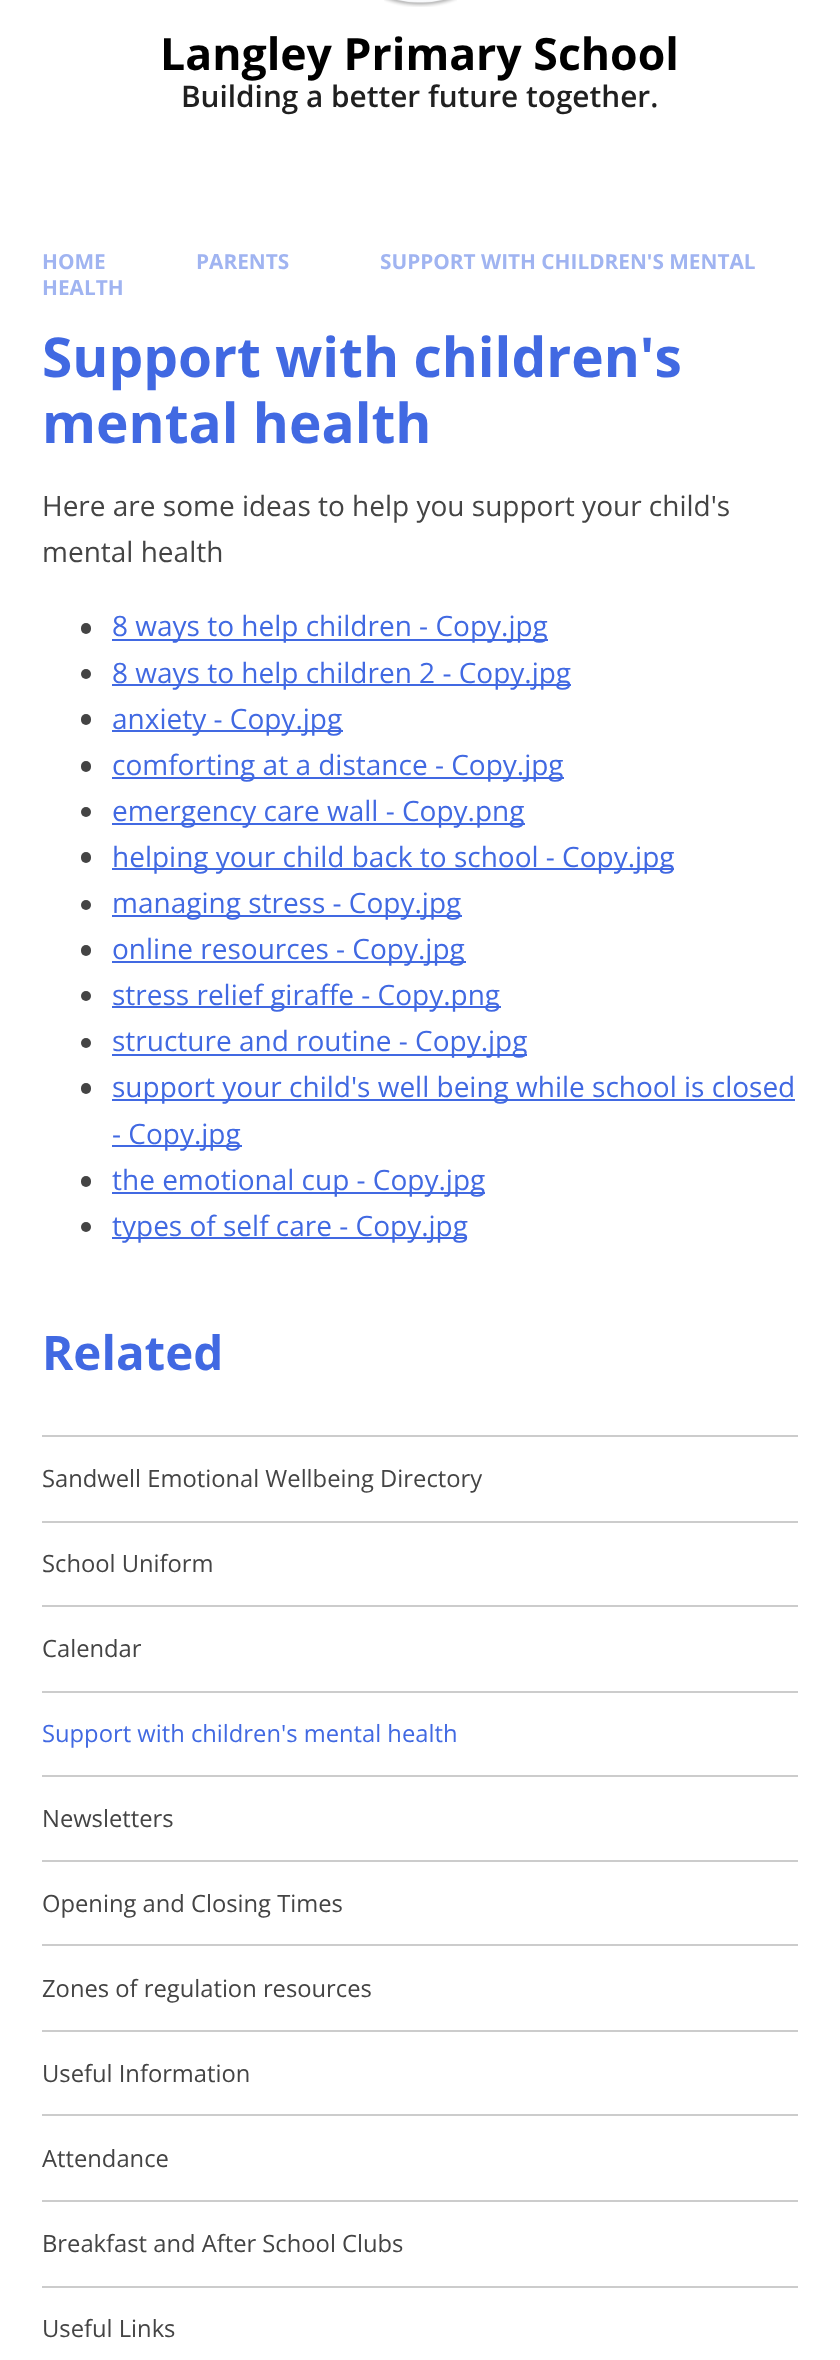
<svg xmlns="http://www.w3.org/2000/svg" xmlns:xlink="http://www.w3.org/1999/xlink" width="840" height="2360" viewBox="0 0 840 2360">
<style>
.cls-1{font:bold 44.6px Open Sans;fill:#000000}
.cls-2{font:600 29.75px Open Sans;fill:#202020}
.cls-3{font:bold 20.8px Open Sans;fill:#a0b4f1}
.cls-4{font:bold 55px Open Sans;fill:#4169e2}
.cls-5{font:28px Open Sans;fill:#444444}
.cls-6{font:28px Open Sans;fill:#4169e2}
.cls-7{font:bold 47.5px Open Sans;fill:#4169e2}
.cls-8{font:23.75px Open Sans;fill:#444444}
.cls-9{font:23.75px Open Sans;fill:#4169e2}
</style>
<rect width="100%" height="100%" fill="#ffffff"/>
<image xlink:href="image0.png" x="384" y="0" width="73" height="7"/>
<rect fill="#444444" x="81" y="623" width="10" height="11" rx="5"/>
<rect fill="#4169e2" x="112" y="639" width="436" height="2"/>
<circle fill="#444444" cx="86" cy="674" r="5"/>
<rect fill="#4169e2" x="112" y="684" width="459" height="2"/>
<rect fill="#444444" x="81" y="714" width="10" height="11" rx="5"/>
<rect fill="#4169e2" x="112" y="730" width="231" height="2"/>
<rect fill="#444444" x="81" y="761" width="10" height="11" rx="5"/>
<rect fill="#4169e2" x="112" y="777" width="452" height="2"/>
<circle fill="#444444" cx="86" cy="812" r="5"/>
<rect fill="#4169e2" x="112" y="823" width="413" height="2"/>
<rect fill="#444444" x="81" y="852" width="10" height="11" rx="5"/>
<rect fill="#4169e2" x="112" y="868" width="562" height="2"/>
<circle fill="#444444" cx="86" cy="905" r="5"/>
<rect fill="#4169e2" x="112" y="915" width="350" height="2"/>
<rect fill="#444444" x="81" y="945" width="10" height="11" rx="5"/>
<rect fill="#4169e2" x="112" y="961" width="354" height="2"/>
<circle fill="#444444" cx="86" cy="996" r="5"/>
<rect fill="#4169e2" x="112" y="1006" width="389" height="2"/>
<circle fill="#444444" cx="86" cy="1043" r="5"/>
<rect fill="#4169e2" x="112" y="1054" width="415" height="2"/>
<rect fill="#444444" x="81" y="1083" width="10" height="11" rx="5"/>
<rect fill="#4169e2" x="112" y="1099" width="683" height="2"/>
<rect fill="#4169e2" x="112" y="1145" width="130" height="2"/>
<rect fill="#444444" x="81" y="1176" width="10" height="11" rx="5"/>
<rect fill="#4169e2" x="112" y="1192" width="373" height="2"/>
<circle fill="#444444" cx="86" cy="1227" r="5"/>
<rect fill="#4169e2" x="112" y="1237" width="355" height="2"/>
<rect fill="#cccccc" x="42" y="1435" width="756" height="2"/>
<rect fill="#cccccc" x="42" y="1521" width="756" height="2"/>
<rect fill="#cccccc" x="42" y="1605" width="756" height="2"/>
<rect fill="#cccccc" x="42" y="1691" width="756" height="2"/>
<rect fill="#cccccc" x="42" y="1775" width="756" height="2"/>
<rect fill="#cccccc" x="42" y="1860" width="756" height="2"/>
<rect fill="#cccccc" x="42" y="1944" width="756" height="2"/>
<rect fill="#cccccc" x="42" y="2030" width="756" height="2"/>
<rect fill="#cccccc" x="42" y="2114" width="756" height="2"/>
<rect fill="#cccccc" x="42" y="2200" width="756" height="2"/>
<rect fill="#cccccc" x="42" y="2286" width="756" height="2"/>
<text class="cls-1" x="160" y="70">Langley Primary School</text>
<text class="cls-2" x="181" y="107">Building a better future together.</text>
<text class="cls-3" x="42" y="269">HOME</text>
<text class="cls-3" x="196" y="269">PARENTS</text>
<text class="cls-3" x="380" y="269">SUPPORT WITH CHILDREN'S MENTAL</text>
<text class="cls-3" x="42" y="295">HEALTH</text>
<text class="cls-4"><tspan x="42" y="377">Support with children's</tspan><tspan x="42" y="443">mental health</tspan></text>
<text class="cls-5"><tspan x="42" y="516">Here are some ideas to help you support your child's</tspan><tspan x="42" y="562">mental health</tspan></text>
<text class="cls-6"><tspan x="112" y="636">8 ways to help children - Copy.jpg</tspan><tspan x="112" y="683">8 ways to help children 2 - Copy.jpg</tspan><tspan x="112" y="729">anxiety - Copy.jpg</tspan><tspan x="112" y="775">comforting at a distance - Copy.jpg</tspan><tspan x="112" y="821">emergency care wall - Copy.png</tspan><tspan x="112" y="867">helping your child back to school - Copy.jpg</tspan><tspan x="112" y="913">managing stress - Copy.jpg</tspan><tspan x="112" y="959">online resources - Copy.jpg</tspan><tspan x="112" y="1005">stress relief giraffe - Copy.png</tspan><tspan x="112" y="1051">structure and routine - Copy.jpg</tspan><tspan x="112" y="1097">support your child's well being while school is closed</tspan><tspan x="112" y="1144">- Copy.jpg</tspan><tspan x="112" y="1190">the emotional cup - Copy.jpg</tspan><tspan x="112" y="1236">types of self care - Copy.jpg</tspan></text>
<text class="cls-7" x="42" y="1370">Related</text>
<text class="cls-8" x="42" y="1487">Sandwell Emotional Wellbeing Directory</text>
<text class="cls-8" x="42" y="1572">School Uniform</text>
<text class="cls-8" x="42" y="1657">Calendar</text>
<text class="cls-9" x="42" y="1742">Support with children's mental health</text>
<text class="cls-8" x="42" y="1827">Newsletters</text>
<text class="cls-8" x="42" y="1912">Opening and Closing Times</text>
<text class="cls-8" x="42" y="1997">Zones of regulation resources</text>
<text class="cls-8" x="42" y="2082">Useful Information</text>
<text class="cls-8" x="42" y="2167">Attendance</text>
<text class="cls-8" x="42" y="2252">Breakfast and After School Clubs</text>
<text class="cls-8" x="42" y="2337">Useful Links</text>
</svg>
